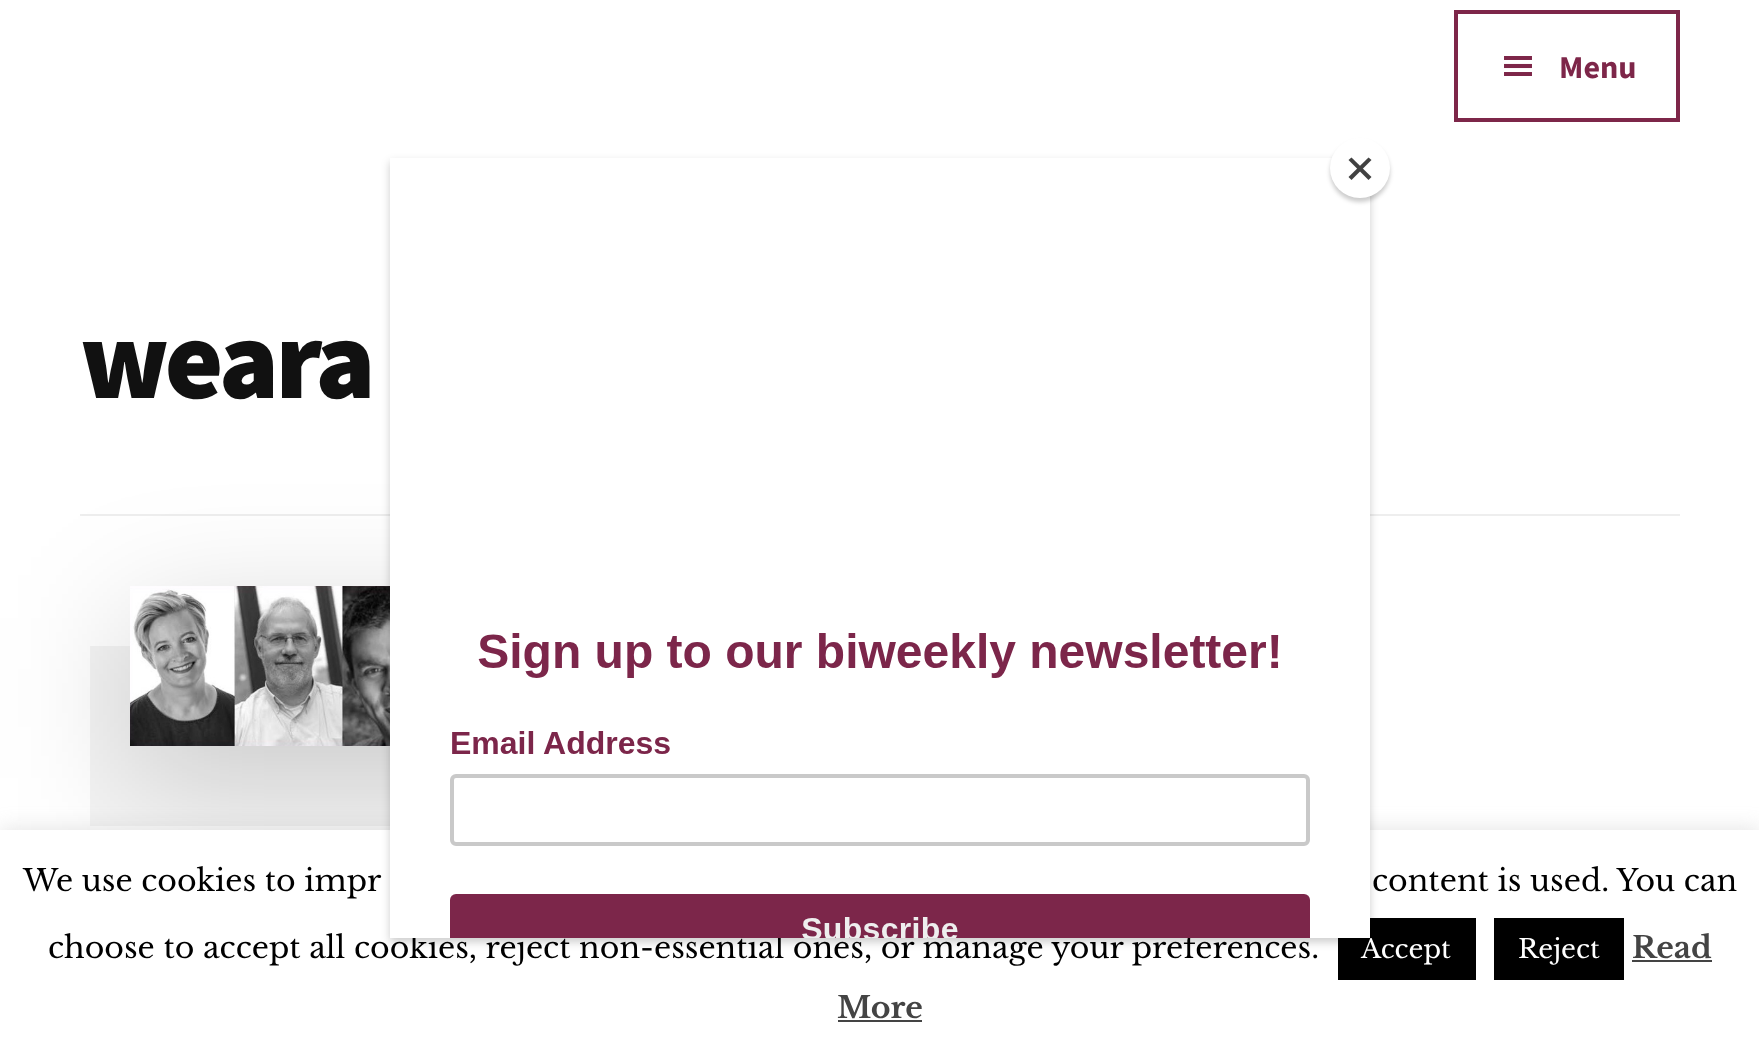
<svg xmlns="http://www.w3.org/2000/svg" xmlns:xlink="http://www.w3.org/1999/xlink" width="1759" height="1058" viewBox="0 0 1759 1058">
<style>
.cls-1{font:bold 32px Source Sans Pro;fill:#7d2649}
.cls-2{font:900 112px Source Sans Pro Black;letter-spacing:-3.5px;fill:#111111}
.cls-3{font:30px Libre Baskerville;fill:#000000}
.cls-4{font:26px Libre Baskerville;fill:#ffffff}
.cls-5{font:bold 30px Libre Baskerville;fill:#444444}
</style>
<defs>
<clipPath id="clip1"><path d="M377 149H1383V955H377ZM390 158H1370V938H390Z" clip-rule="evenodd"/></clipPath>
</defs>
<rect width="100%" height="100%" fill="#ffffff"/>
<rect fill="none" stroke="#7d2649" stroke-width="4" x="1456" y="12" width="222" height="108"/>
<image xlink:href="image0.png" x="1504" y="56" width="28" height="20"/>
<rect fill="#eeeeee" x="80" y="514" width="1600" height="2"/>
<rect fill="#f4f4f4" x="90" y="646" width="300" height="180"/>
<rect fill="#000000" fill-opacity="0.18" filter="blur(65px)" x="130" y="618" width="432" height="160"/>
<image xlink:href="image1.png" x="130" y="586" width="260" height="160"/>
<rect fill="#000000" fill-opacity="0.2" filter="blur(2px)" x="1330" y="142" width="60" height="60" rx="30"/>
<rect fill="#acabab" fill-opacity="0.3" filter="blur(10px)" x="0" y="828" width="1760" height="228"/>
<rect fill="#ffffff" x="0" y="830" width="1759" height="228"/>
<rect fill="#000000" x="1338" y="918" width="138" height="62"/>
<g clip-path="url(#clip1)">
<rect fill="#000000" fill-opacity="0.2" filter="blur(4px)" x="390" y="162" width="980" height="780"/>
</g>
<circle fill="#ffffff" cx="1360" cy="168" r="30"/>
<path fill="#414141" d="M1368.5 157.5L1371.5 160L1351.5 180L1348.5 177Z"/>
<path fill="#414141" d="M1348.5 160L1351.5 157.5L1371.5 177L1368.5 180Z"/>
<rect fill="#000000" x="1494" y="918" width="130" height="62"/>
<rect fill="#444444" x="1632" y="960" width="80" height="2"/>
<rect fill="#444444" x="838" y="1020" width="84" height="2"/>
<text class="cls-1" x="1559" y="78">Menu</text>
<text class="cls-2" x="80" y="398">weara</text>
<text class="cls-3" x="23" y="891">We use cookies to impr</text>
<text class="cls-3" x="1372" y="891">content is used. You can</text>
<text class="cls-3" x="48" y="958">choose to accept all cookies, reject non-essential ones, or manage your preferences.</text>
<image xlink:href="image2.png" x="390" y="320" width="980" height="618"/>
<text class="cls-4" x="1361" y="958">Accept</text>
<text class="cls-4" x="1518" y="958">Reject</text>
<text class="cls-5" x="1632" y="958">Read</text>
<text class="cls-5" x="837" y="1018">More</text>
</svg>
